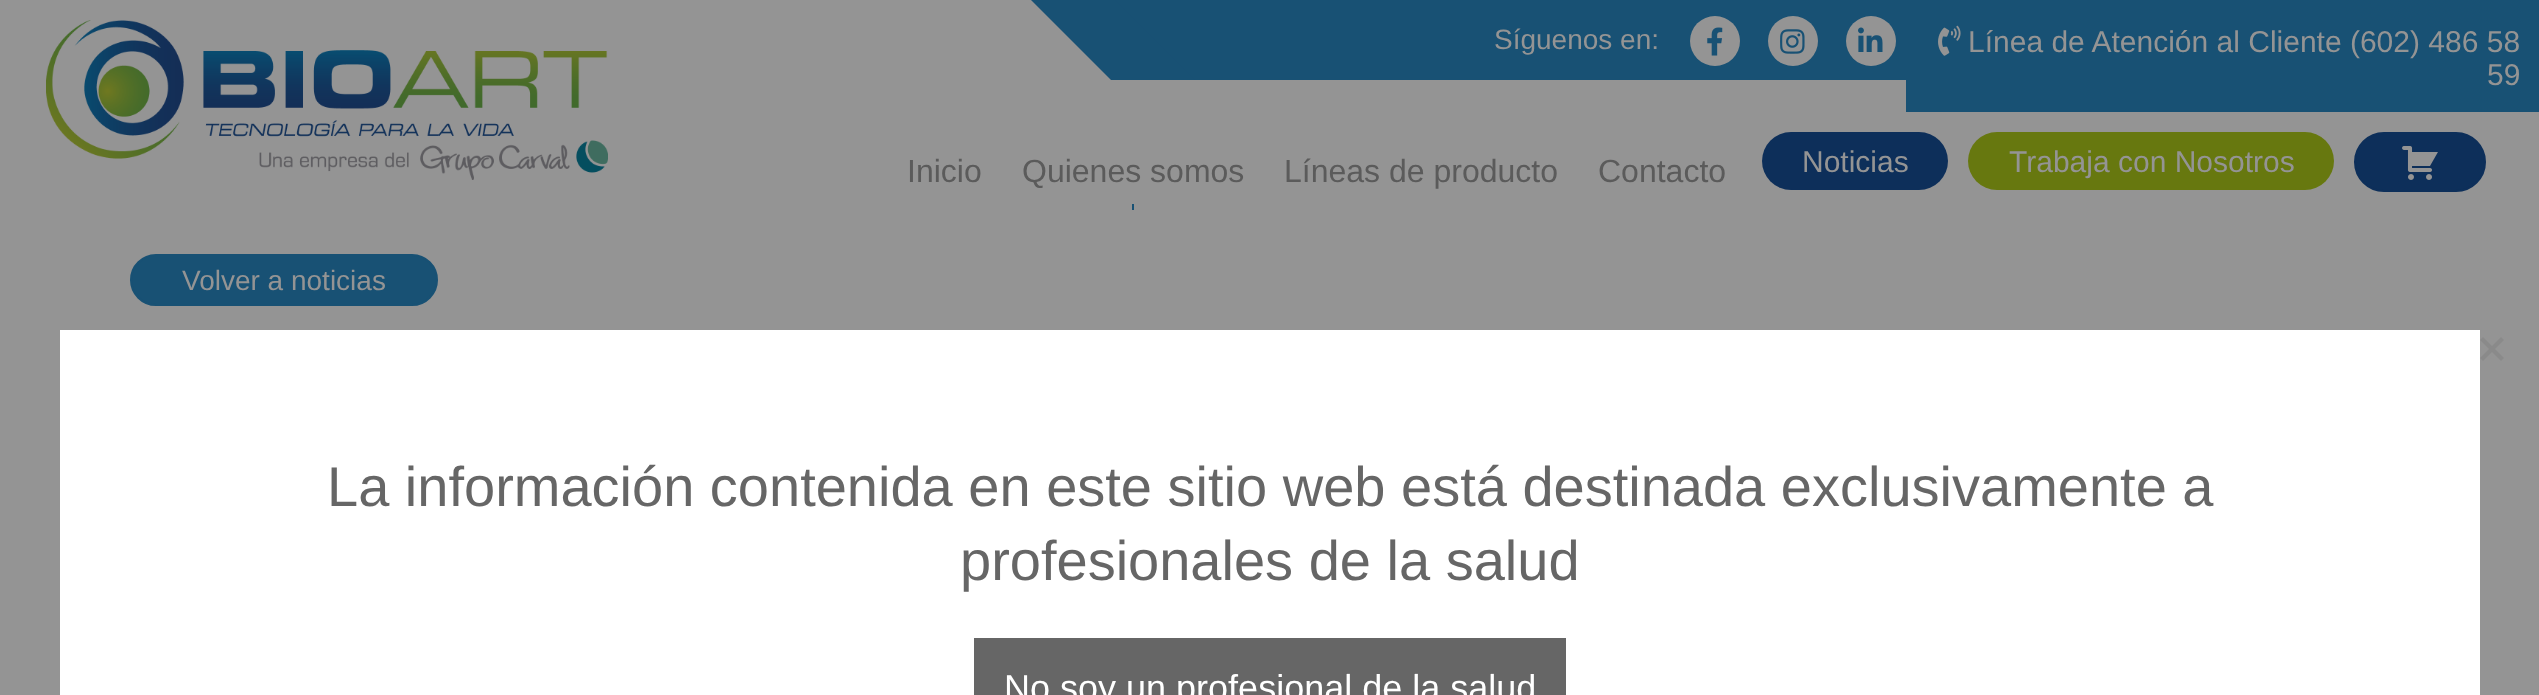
<svg xmlns="http://www.w3.org/2000/svg" xmlns:xlink="http://www.w3.org/1999/xlink" width="2539" height="695" viewBox="0 0 2539 695">
<style>
.cls-1{font:28px Liberation Sans;fill:#949494}
.cls-2{font:30px Liberation Sans;fill:#949494}
.cls-3{font:32px Liberation Sans;fill:#5b5b5b}
.cls-4{font:56px Liberation Sans;fill:#666666}
.cls-5{font:36px Liberation Sans;fill:#ffffff}
</style>
<rect width="100%" height="100%" fill="#949494"/>
<image xlink:href="image0.png" x="46" y="20" width="562" height="160"/>
<rect fill="#185174" x="1115" y="0" width="791" height="80"/>
<path fill="#185174" d="M1031 0H1115L1195 80H1111Z"/>
<circle fill="#949494" cx="1715" cy="41" r="25"/>
<image xlink:href="image1.png" x="1707" y="27" width="16" height="29"/>
<circle fill="#949494" cx="1793" cy="41" r="25"/>
<image xlink:href="image2.png" x="1780" y="29" width="25" height="25"/>
<circle fill="#949494" cx="1871" cy="41" r="25"/>
<image xlink:href="image3.png" x="1858" y="27" width="25" height="25"/>
<rect fill="#185174" x="1906" y="0" width="633" height="112"/>
<image xlink:href="image4.png" x="1938" y="25" width="23" height="31"/>
<rect fill="#185174" x="1132" y="204" width="2" height="6"/>
<rect fill="#0d2f5a" x="1762" y="132" width="186" height="58" rx="29"/>
<rect fill="#67780f" x="1968" y="132" width="366" height="58" rx="29"/>
<rect fill="#0d2f5a" stroke="#0d2f5a" stroke-width="2" x="2355" y="133" width="130" height="58" rx="29"/>
<image xlink:href="image5.png" x="2402" y="146" width="36" height="34"/>
<rect fill="#185174" stroke="#185174" stroke-width="2" x="131" y="255" width="306" height="50" rx="25"/>
<path fill="#8a8a8a" d="M2501 337L2504 340L2483 361L2480 358Z"/>
<path fill="#8a8a8a" d="M2480 340L2483 337L2504 358L2501 361Z"/>
<rect fill="#ffffff" x="60" y="330" width="2420" height="365"/>
<rect fill="#666666" x="974" y="638" width="592" height="57"/>
<text class="cls-1" x="1494" y="49">Síguenos en:</text>
<text class="cls-2" x="1968" y="52">Línea de Atención al Cliente (602) 486 58</text>
<text class="cls-2" x="2487" y="85">59</text>
<text class="cls-3" x="907" y="182">Inicio</text>
<text class="cls-3" x="1022" y="182">Quienes somos</text>
<text class="cls-3" x="1284" y="182">Líneas de producto</text>
<text class="cls-3" x="1598" y="182">Contacto</text>
<text class="cls-2" x="1802" y="172">Noticias</text>
<text class="cls-2" x="2009" y="172">Trabaja con Nosotros</text>
<text class="cls-1" x="182" y="290">Volver a noticias</text>
<text class="cls-4" x="327" y="506">La información contenida en este sitio web está destinada exclusivamente a</text>
<text class="cls-4" x="960" y="580">profesionales de la salud</text>
<text class="cls-5" x="1004" y="700">No soy un profesional de la salud</text>
</svg>
